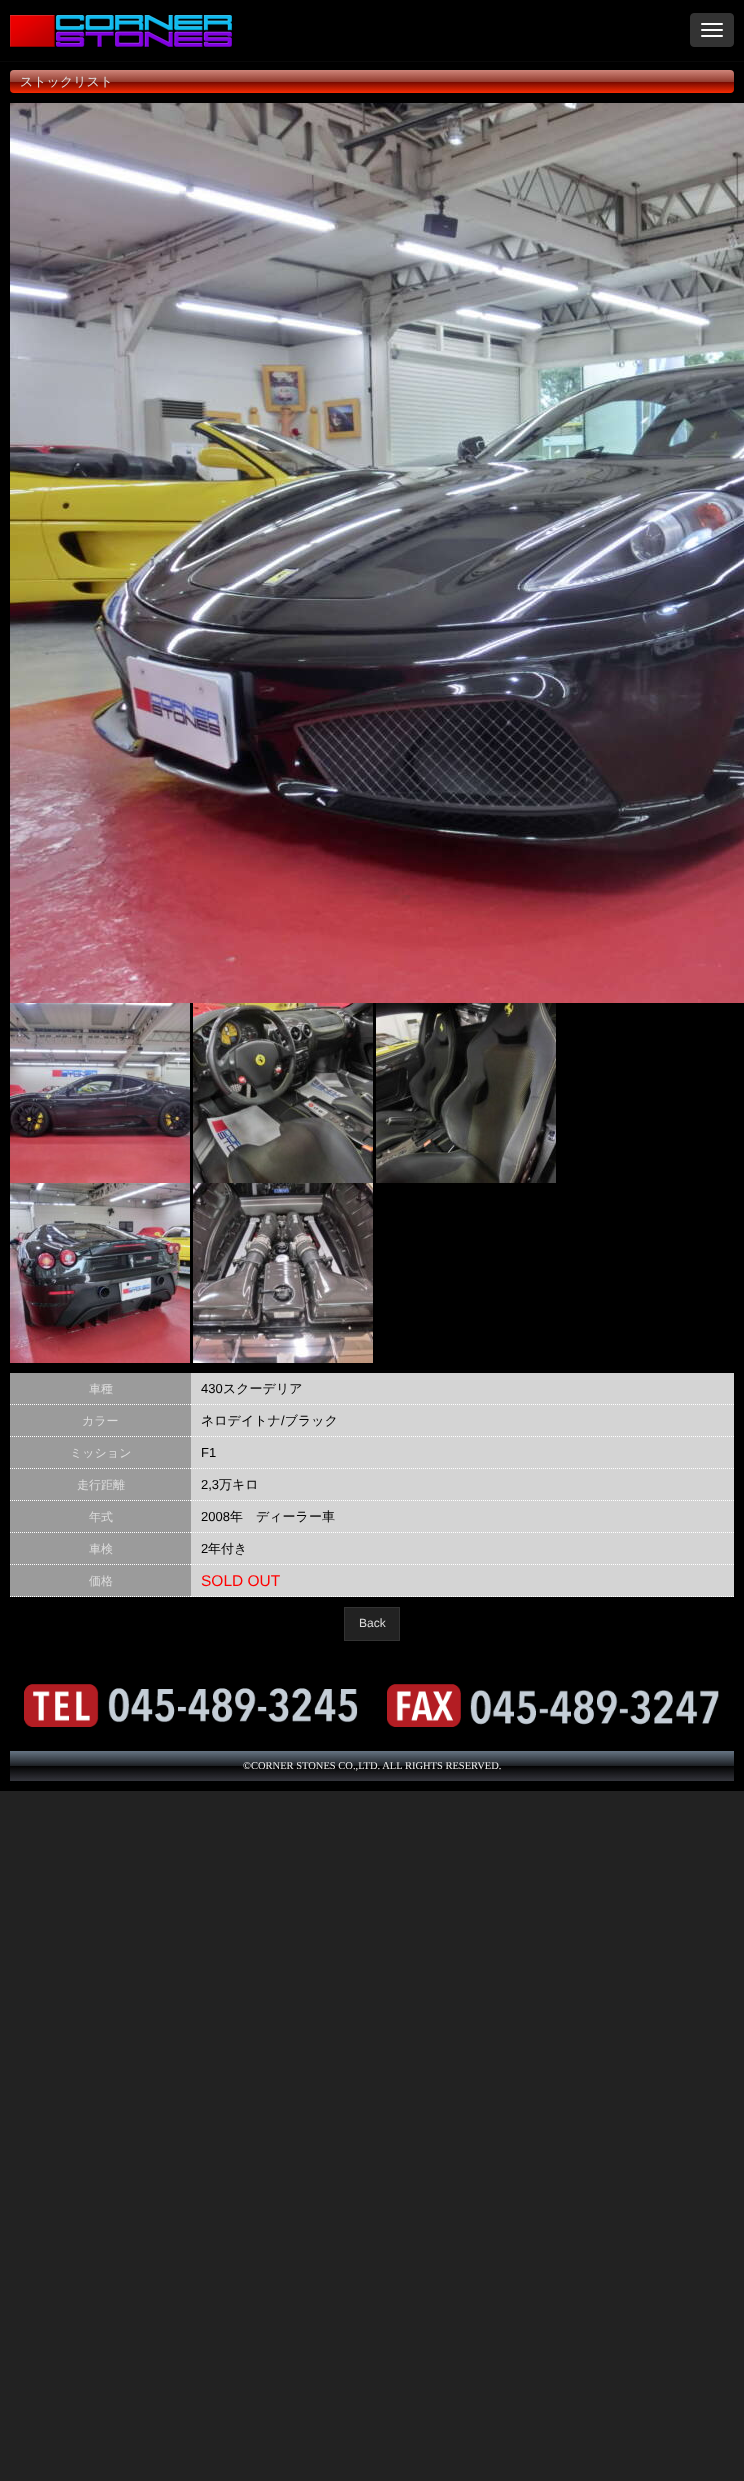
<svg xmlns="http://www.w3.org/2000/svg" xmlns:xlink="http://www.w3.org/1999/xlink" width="744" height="2481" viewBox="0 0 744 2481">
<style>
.cls-1{font:500 13px WenQuanYi Zen Hei;fill:#dddddd}
.cls-2{font:500 12px WenQuanYi Zen Hei;fill:#dddddd}
.cls-3{font:13px Liberation Sans;fill:#000000}
.cls-4{font:500 13px WenQuanYi Zen Hei;fill:#000000}
.cls-5{font:15.5px Liberation Sans;fill:#ff0000}
.cls-6{font:12px Liberation Sans;fill:#dddddd}
.cls-7{font:10.5px Liberation Serif;fill:#efefef}
</style>
<defs>
<linearGradient id="g1" gradientUnits="userSpaceOnUse" x1="372" y1="70" x2="372" y2="93"><stop offset="0" stop-color="#cf857a"/><stop offset="0.5" stop-color="#943e31"/><stop offset="0.51" stop-color="#730800"/><stop offset="1" stop-color="#f62b02"/></linearGradient>
<linearGradient id="g2" gradientUnits="userSpaceOnUse" x1="372" y1="1751" x2="372" y2="1781"><stop offset="0" stop-color="#667483"/><stop offset="0.5" stop-color="#1c1f23"/><stop offset="0.51" stop-color="#030303"/><stop offset="1" stop-color="#34353c"/></linearGradient>
</defs>
<rect width="100%" height="100%" fill="#222222"/>
<rect fill="#000000" x="0" y="0" width="744" height="61"/>
<rect fill="#080808" x="0" y="61" width="744" height="1"/>
<image xlink:href="image0.png" x="10" y="15" width="222" height="32"/>
<rect fill="#333333" stroke="#333333" x="690.5" y="13.5" width="43" height="33" rx="3.5"/>
<rect fill="#ffffff" x="701" y="23" width="22" height="2" rx="1"/>
<rect fill="#ffffff" x="701" y="29" width="22" height="2" rx="1"/>
<rect fill="#ffffff" x="701" y="35" width="22" height="2" rx="1"/>
<rect fill="#000000" x="0" y="62" width="744" height="1729"/>
<rect fill="url(#g1)" x="10" y="70" width="724" height="23" rx="4"/>
<image xlink:href="image1.png" x="10" y="103" width="734" height="900"/>
<image xlink:href="image2.png" x="10" y="1003" width="180" height="180"/>
<image xlink:href="image3.png" x="193" y="1003" width="180" height="180"/>
<image xlink:href="image4.png" x="376" y="1003" width="180" height="180"/>
<image xlink:href="image5.png" x="10" y="1183" width="180" height="180"/>
<image xlink:href="image6.png" x="193" y="1183" width="180" height="180"/>
<rect fill="#9b9b9b" x="10" y="1373" width="181" height="224"/>
<path fill="none" stroke="#ffffff" stroke-dasharray="1 1" d="M10 1404.5H191"/>
<rect fill="#d4d4d4" x="191" y="1373" width="543" height="224"/>
<path fill="none" stroke="#ffffff" stroke-dasharray="1 1" d="M191 1404.5H734"/>
<path fill="none" stroke="#ffffff" stroke-dasharray="1 1" d="M10 1436.5H191"/>
<path fill="none" stroke="#ffffff" stroke-dasharray="1 1" d="M191 1436.5H734"/>
<path fill="none" stroke="#ffffff" stroke-dasharray="1 1" d="M10 1468.5H191"/>
<path fill="none" stroke="#ffffff" stroke-dasharray="1 1" d="M191 1468.5H734"/>
<path fill="none" stroke="#ffffff" stroke-dasharray="1 1" d="M10 1500.5H191"/>
<path fill="none" stroke="#ffffff" stroke-dasharray="1 1" d="M191 1500.5H734"/>
<path fill="none" stroke="#ffffff" stroke-dasharray="1 1" d="M10 1532.5H191"/>
<path fill="none" stroke="#ffffff" stroke-dasharray="1 1" d="M191 1532.5H734"/>
<path fill="none" stroke="#ffffff" stroke-dasharray="1 1" d="M10 1564.5H191"/>
<path fill="none" stroke="#ffffff" stroke-dasharray="1 1" d="M191 1564.5H734"/>
<path fill="none" stroke="#ffffff" stroke-dasharray="1 1" d="M10 1596.5H191"/>
<path fill="none" stroke="#ffffff" stroke-dasharray="1 1" d="M191 1596.5H734"/>
<rect fill="#222222" stroke="#333333" x="344.5" y="1607.5" width="55" height="33"/>
<image xlink:href="image7.png" x="24" y="1684" width="334" height="43"/>
<image xlink:href="image8.png" x="387" y="1684" width="332" height="43"/>
<rect fill="url(#g2)" x="10" y="1751" width="724" height="30"/>
<text class="cls-1" x="20" y="86">ストックリスト</text>
<text class="cls-2" x="89" y="1393">車種</text>
<text class="cls-3" x="201" y="1393">430</text>
<text class="cls-4" x="223" y="1393">スクーデリア</text>
<text class="cls-2" x="82" y="1425">カラー</text>
<text class="cls-4" x="201" y="1425">ネロデイトナ ブラック</text>
<text class="cls-3" x="281" y="1425">/</text>
<text class="cls-2" x="70" y="1457">ミッション</text>
<text class="cls-3" x="201" y="1457">F1</text>
<text class="cls-2" x="77" y="1489">走行距離</text>
<text class="cls-3" x="201" y="1489">2,3</text>
<text class="cls-4" x="219" y="1489">万キロ</text>
<text class="cls-2" x="89" y="1521">年式</text>
<text class="cls-3" x="201" y="1521">2008</text>
<text class="cls-4" x="230" y="1521">年　ディーラー車</text>
<text class="cls-2" x="89" y="1553">車検</text>
<text class="cls-3" x="201" y="1553">2</text>
<text class="cls-4" x="208" y="1553">年付き</text>
<text class="cls-2" x="89" y="1585">価格</text>
<text class="cls-5" x="201" y="1586">SOLD OUT</text>
<text class="cls-6" x="359" y="1627">Back</text>
<text class="cls-7" x="243" y="1769">©CORNER STONES CO.,LTD. ALL RIGHTS RESERVED.</text>
</svg>
